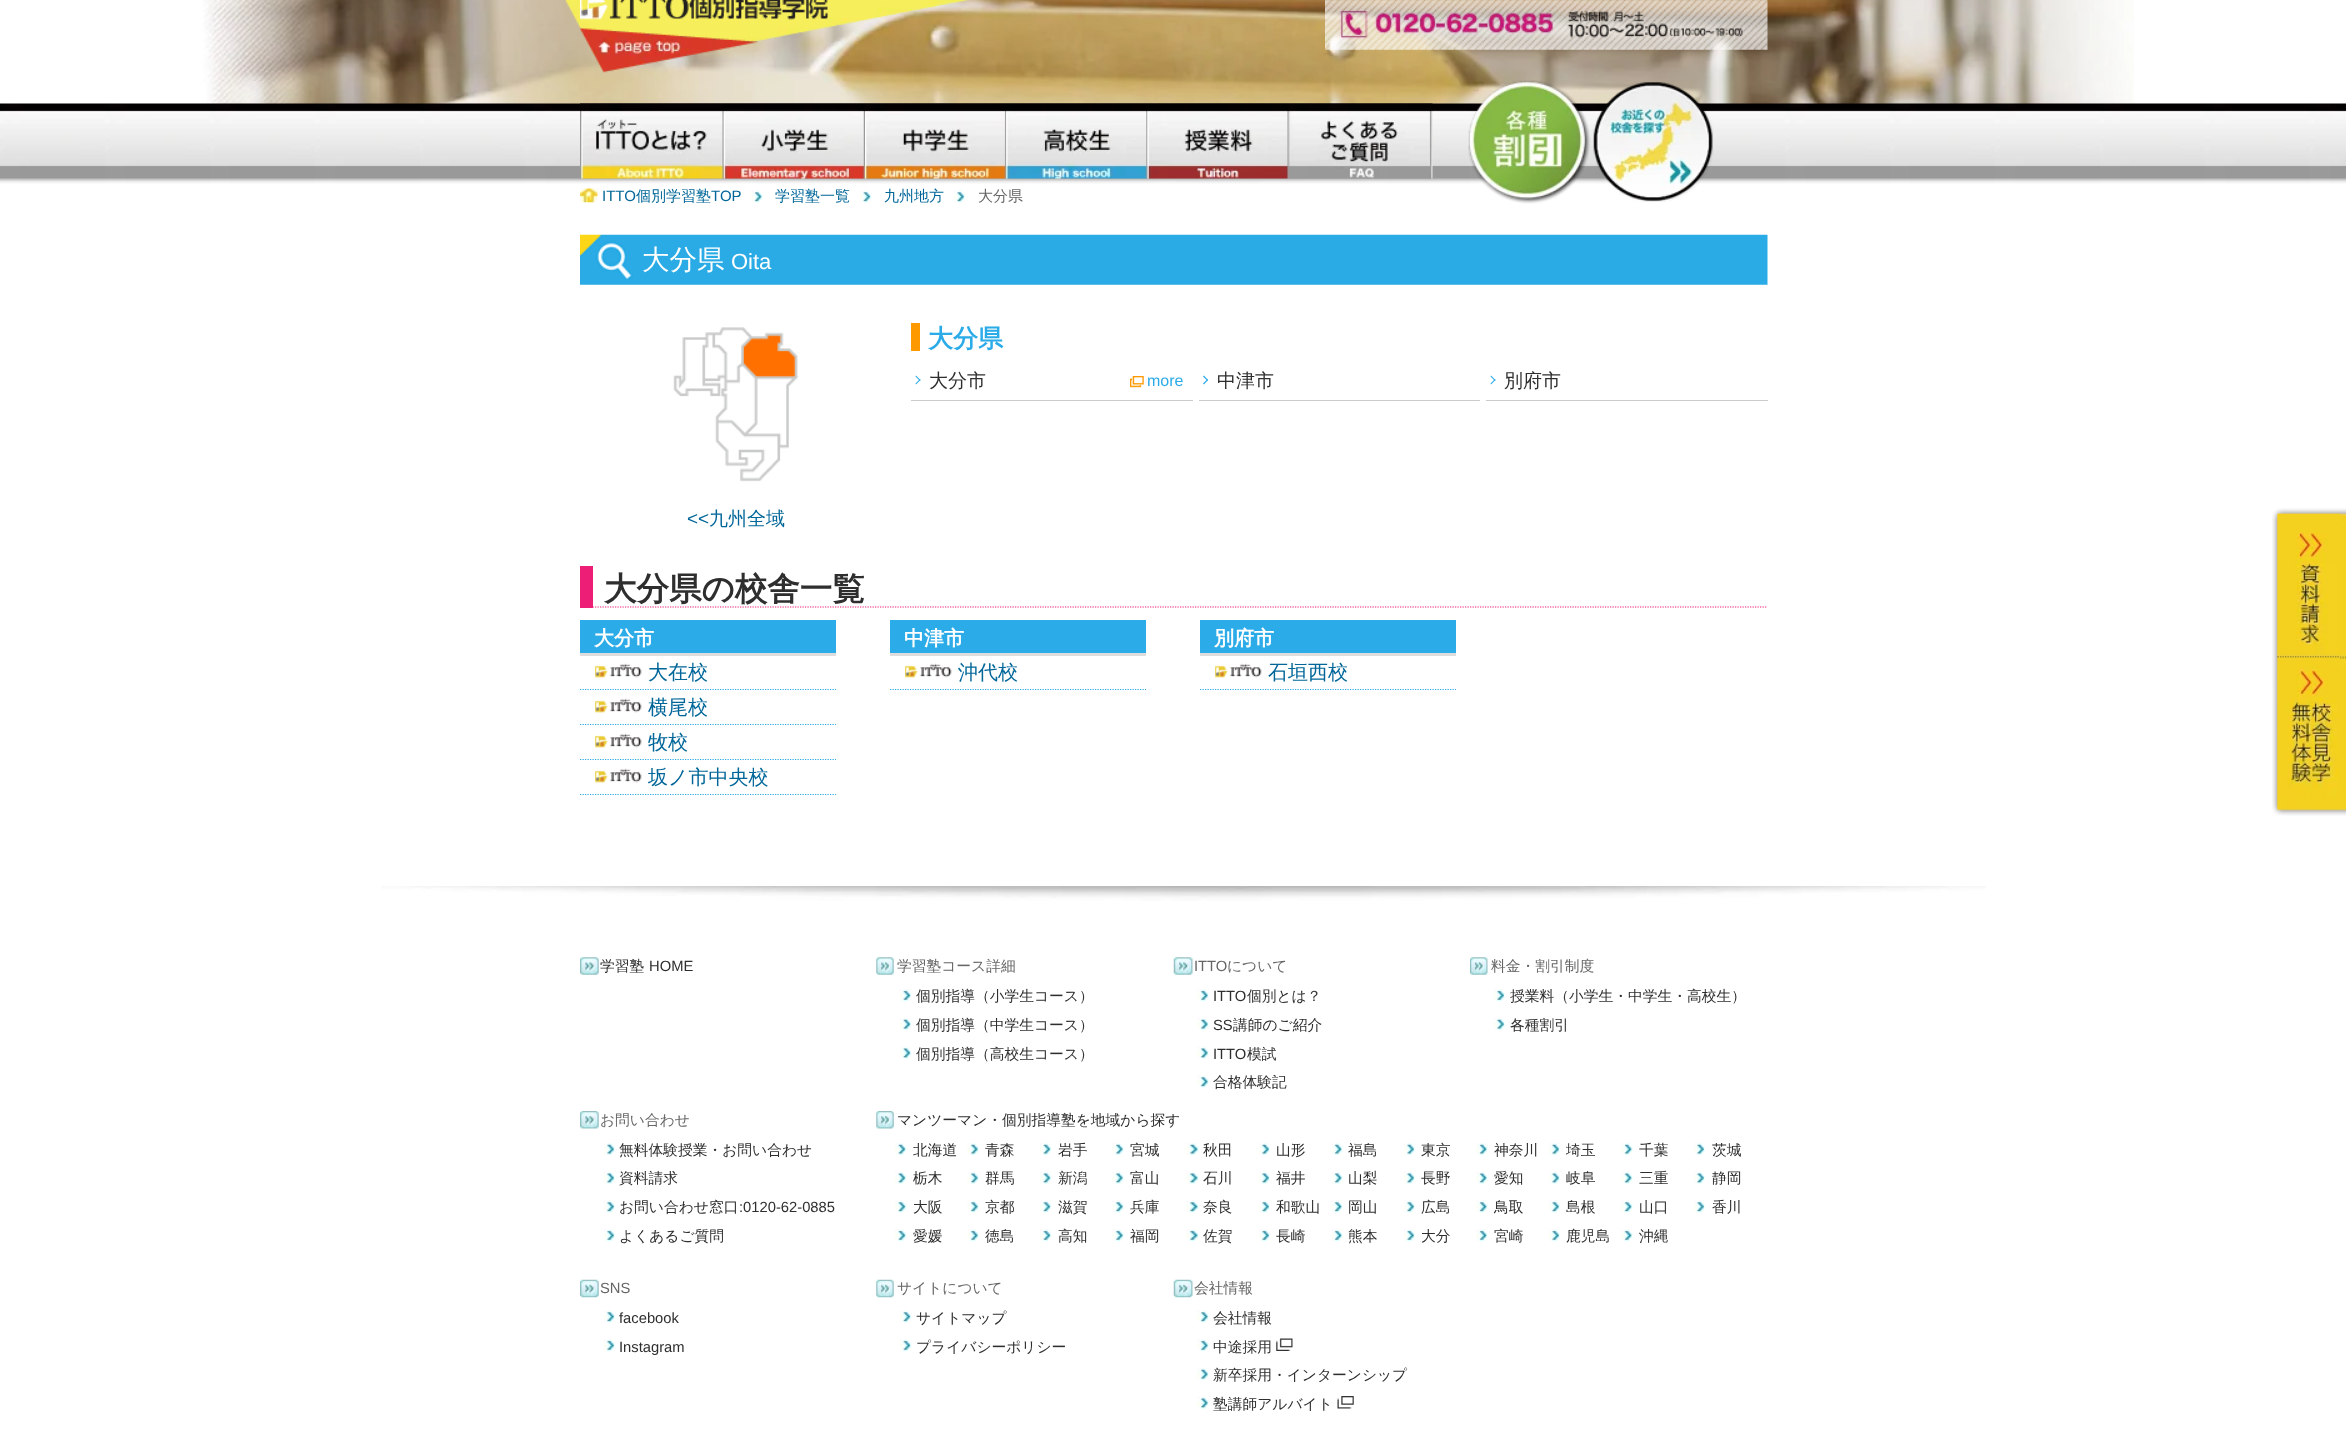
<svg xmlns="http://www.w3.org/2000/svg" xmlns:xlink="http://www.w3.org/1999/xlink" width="2346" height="1438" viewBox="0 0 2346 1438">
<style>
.cls-1{font:15px Liberation Sans;fill:#006699}
.cls-2{font:500 15px WenQuanYi Zen Hei;fill:#006699}
.cls-3{font:500 15px WenQuanYi Zen Hei;fill:#666666}
.cls-4{font:500 27.5px WenQuanYi Zen Hei;fill:#ffffff}
.cls-5{font:22px Liberation Sans;fill:#ffffff}
.cls-6{font:bold 25px WenQuanYi Zen Hei;fill:#2babe8}
.cls-7{font:500 19px WenQuanYi Zen Hei;fill:#2e2e2e}
.cls-8{font:16px Liberation Sans;fill:#2babe8}
.cls-9{font:19px Liberation Sans;fill:#006699}
.cls-10{font:500 19px WenQuanYi Zen Hei;fill:#006699}
.cls-11{font:bold 32.5px WenQuanYi Zen Hei;fill:#2e2e2e}
.cls-12{font:bold 20px WenQuanYi Zen Hei;fill:#ffffff}
.cls-13{font:500 20px WenQuanYi Zen Hei;fill:#006699}
.cls-14{font:500 14.75px WenQuanYi Zen Hei;fill:#2e2e2e}
.cls-15{font:14.75px Liberation Sans;fill:#2e2e2e}
.cls-16{font:500 14.75px WenQuanYi Zen Hei;fill:#666666}
.cls-17{font:14.75px Liberation Sans;fill:#666666}
</style>
<rect width="100%" height="100%" fill="#ffffff"/>
<image xlink:href="image0.png" x="202" y="0" width="1932" height="104"/>
<image xlink:href="image1.png" x="565" y="0" width="403" height="71"/>
<image xlink:href="image2.png" x="580" y="0" width="248" height="20"/>
<image xlink:href="image3.png" x="1325" y="0" width="443" height="50"/>
<image xlink:href="image4.png" x="580" y="28" width="178" height="45"/>
<image xlink:href="image5.png" x="0" y="103" width="2346" height="81"/>
<image xlink:href="image6.png" x="580" y="103" width="144" height="76"/>
<image xlink:href="image7.png" x="723" y="103" width="142" height="76"/>
<image xlink:href="image8.png" x="865" y="103" width="142" height="76"/>
<image xlink:href="image9.png" x="1006" y="103" width="142" height="76"/>
<image xlink:href="image10.png" x="1147" y="103" width="142" height="76"/>
<image xlink:href="image11.png" x="1288" y="103" width="145" height="76"/>
<image xlink:href="image12.png" x="1468" y="80" width="123" height="124"/>
<image xlink:href="image13.png" x="1593" y="82" width="121" height="120"/>
<image xlink:href="image14.png" x="751" y="190" width="12" height="13"/>
<image xlink:href="image15.png" x="580" y="188" width="18" height="15"/>
<image xlink:href="image16.png" x="860" y="190" width="12" height="13"/>
<image xlink:href="image17.png" x="954" y="190" width="11" height="13"/>
<image xlink:href="image18.png" x="2272" y="508" width="74" height="308"/>
<image xlink:href="image19.png" x="2277" y="513" width="63" height="145"/>
<image xlink:href="image20.png" x="2277" y="657" width="63" height="152"/>
<image xlink:href="image21.png" x="580" y="234" width="1188" height="51"/>
<rect fill="#ff9900" x="911" y="323" width="9" height="28"/>
<rect fill="#cccccc" x="911" y="400" width="282" height="1"/>
<path fill="#2babe8" d="M916 375.5L920.5 380L920 381L915.5 376.5Z"/>
<path fill="#2babe8" d="M920 379L920.5 380L916 384.5L915.5 383.5Z"/>
<image xlink:href="image22.png" x="1130" y="376" width="14" height="12"/>
<rect fill="#cccccc" x="1199" y="400" width="281" height="1"/>
<path fill="#2babe8" d="M1204 375.5L1208 380L1207.5 381L1203 376.5Z"/>
<path fill="#2babe8" d="M1207.5 379L1208 380L1204 384.5L1203 383.5Z"/>
<rect fill="#cccccc" x="1486" y="400" width="282" height="1"/>
<path fill="#2babe8" d="M1491 375.5L1495.5 380L1495 381L1490.5 376.5Z"/>
<path fill="#2babe8" d="M1495 379L1495.5 380L1491 384.5L1490.5 383.5Z"/>
<image xlink:href="image23.png" x="673" y="327" width="126" height="155"/>
<path fill="none" stroke="#ed1e76" stroke-width="1.2" stroke-dasharray="1.25 1.25" d="M580 607H1767.5"/>
<rect fill="#ed1e76" x="580" y="566" width="13" height="42"/>
<rect fill="#2babe8" x="580" y="620" width="256" height="33"/>
<rect fill="#dddddd" x="580" y="653" width="256" height="3"/>
<image xlink:href="image24.png" x="595" y="663" width="47" height="15"/>
<path fill="none" stroke="#2babe8" stroke-width="1.2" stroke-dasharray="1.25 1.25" d="M580 689.5H836"/>
<image xlink:href="image24.png" x="595" y="698" width="47" height="15"/>
<path fill="none" stroke="#2babe8" stroke-width="1.2" stroke-dasharray="1.25 1.25" d="M580 724.5H836"/>
<image xlink:href="image24.png" x="595" y="733" width="47" height="15"/>
<path fill="none" stroke="#2babe8" stroke-width="1.2" stroke-dasharray="1.25 1.25" d="M580 759.5H836"/>
<image xlink:href="image24.png" x="595" y="768" width="47" height="15"/>
<path fill="none" stroke="#2babe8" stroke-width="1.2" stroke-dasharray="1.25 1.25" d="M580 794.5H836"/>
<rect fill="#2babe8" x="890" y="620" width="256" height="33"/>
<rect fill="#dddddd" x="890" y="653" width="256" height="3"/>
<image xlink:href="image24.png" x="905" y="663" width="47" height="15"/>
<path fill="none" stroke="#2babe8" stroke-width="1.2" stroke-dasharray="1.25 1.25" d="M890 689.5H1146"/>
<rect fill="#2babe8" x="1200" y="620" width="256" height="33"/>
<rect fill="#dddddd" x="1200" y="653" width="256" height="3"/>
<image xlink:href="image24.png" x="1215" y="663" width="47" height="15"/>
<path fill="none" stroke="#2babe8" stroke-width="1.2" stroke-dasharray="1.25 1.25" d="M1200 689.5H1456"/>
<image xlink:href="image25.png" x="381" y="886" width="1605" height="15"/>
<image xlink:href="image26.png" x="580" y="957" width="19" height="18"/>
<image xlink:href="image27.png" x="876" y="957" width="18" height="18"/>
<image xlink:href="image28.png" x="900" y="989" width="12" height="12"/>
<image xlink:href="image29.png" x="900" y="1018" width="12" height="12"/>
<image xlink:href="image30.png" x="900" y="1046" width="12" height="13"/>
<image xlink:href="image31.png" x="1173" y="957" width="20" height="18"/>
<image xlink:href="image32.png" x="1197" y="989" width="12" height="12"/>
<image xlink:href="image33.png" x="1197" y="1018" width="12" height="12"/>
<image xlink:href="image34.png" x="1197" y="1046" width="12" height="13"/>
<image xlink:href="image35.png" x="1197" y="1075" width="12" height="13"/>
<image xlink:href="image36.png" x="1470" y="957" width="18" height="18"/>
<image xlink:href="image37.png" x="1494" y="989" width="11" height="12"/>
<image xlink:href="image38.png" x="1494" y="1018" width="11" height="12"/>
<image xlink:href="image39.png" x="580" y="1111" width="19" height="18"/>
<image xlink:href="image38.png" x="604" y="1143" width="11" height="12"/>
<image xlink:href="image40.png" x="604" y="1171" width="11" height="13"/>
<image xlink:href="image41.png" x="604" y="1200" width="11" height="13"/>
<image xlink:href="image37.png" x="604" y="1229" width="11" height="12"/>
<image xlink:href="image42.png" x="876" y="1111" width="18" height="18"/>
<image xlink:href="image29.png" x="895" y="1143" width="12" height="12"/>
<image xlink:href="image43.png" x="967" y="1143" width="12" height="12"/>
<image xlink:href="image44.png" x="1040" y="1143" width="12" height="12"/>
<image xlink:href="image43.png" x="1112" y="1143" width="12" height="12"/>
<image xlink:href="image45.png" x="1186" y="1143" width="13" height="12"/>
<image xlink:href="image38.png" x="1259" y="1143" width="11" height="12"/>
<image xlink:href="image46.png" x="1331" y="1143" width="12" height="12"/>
<image xlink:href="image47.png" x="1404" y="1143" width="11" height="12"/>
<image xlink:href="image46.png" x="1476" y="1143" width="12" height="12"/>
<image xlink:href="image47.png" x="1549" y="1143" width="11" height="12"/>
<image xlink:href="image46.png" x="1621" y="1143" width="12" height="12"/>
<image xlink:href="image38.png" x="1694" y="1143" width="11" height="12"/>
<image xlink:href="image30.png" x="895" y="1171" width="12" height="13"/>
<image xlink:href="image48.png" x="967" y="1171" width="12" height="13"/>
<image xlink:href="image49.png" x="1040" y="1171" width="12" height="13"/>
<image xlink:href="image48.png" x="1112" y="1171" width="12" height="13"/>
<image xlink:href="image50.png" x="1186" y="1171" width="13" height="13"/>
<image xlink:href="image40.png" x="1259" y="1171" width="11" height="13"/>
<image xlink:href="image51.png" x="1331" y="1171" width="12" height="13"/>
<image xlink:href="image52.png" x="1404" y="1171" width="11" height="13"/>
<image xlink:href="image51.png" x="1476" y="1171" width="12" height="13"/>
<image xlink:href="image52.png" x="1549" y="1171" width="11" height="13"/>
<image xlink:href="image51.png" x="1621" y="1171" width="12" height="13"/>
<image xlink:href="image40.png" x="1694" y="1171" width="11" height="13"/>
<image xlink:href="image16.png" x="895" y="1200" width="12" height="13"/>
<image xlink:href="image53.png" x="967" y="1200" width="12" height="13"/>
<image xlink:href="image54.png" x="1040" y="1200" width="12" height="13"/>
<image xlink:href="image53.png" x="1112" y="1200" width="12" height="13"/>
<image xlink:href="image55.png" x="1186" y="1200" width="13" height="13"/>
<image xlink:href="image41.png" x="1259" y="1200" width="11" height="13"/>
<image xlink:href="image14.png" x="1331" y="1200" width="12" height="13"/>
<image xlink:href="image17.png" x="1404" y="1200" width="11" height="13"/>
<image xlink:href="image14.png" x="1476" y="1200" width="12" height="13"/>
<image xlink:href="image17.png" x="1549" y="1200" width="11" height="13"/>
<image xlink:href="image14.png" x="1621" y="1200" width="12" height="13"/>
<image xlink:href="image41.png" x="1694" y="1200" width="11" height="13"/>
<image xlink:href="image28.png" x="895" y="1229" width="12" height="12"/>
<image xlink:href="image56.png" x="967" y="1229" width="12" height="12"/>
<image xlink:href="image57.png" x="1040" y="1229" width="12" height="12"/>
<image xlink:href="image56.png" x="1112" y="1229" width="12" height="12"/>
<image xlink:href="image58.png" x="1186" y="1229" width="13" height="12"/>
<image xlink:href="image37.png" x="1259" y="1229" width="11" height="12"/>
<image xlink:href="image59.png" x="1331" y="1229" width="12" height="12"/>
<image xlink:href="image60.png" x="1404" y="1229" width="11" height="12"/>
<image xlink:href="image59.png" x="1476" y="1229" width="12" height="12"/>
<image xlink:href="image60.png" x="1549" y="1229" width="11" height="12"/>
<image xlink:href="image59.png" x="1621" y="1229" width="12" height="12"/>
<image xlink:href="image61.png" x="580" y="1279" width="19" height="19"/>
<image xlink:href="image41.png" x="604" y="1310" width="11" height="13"/>
<image xlink:href="image37.png" x="604" y="1339" width="11" height="12"/>
<image xlink:href="image62.png" x="876" y="1279" width="18" height="19"/>
<image xlink:href="image16.png" x="900" y="1310" width="12" height="13"/>
<image xlink:href="image28.png" x="900" y="1339" width="12" height="12"/>
<image xlink:href="image63.png" x="1173" y="1279" width="20" height="19"/>
<image xlink:href="image35.png" x="1197" y="1310" width="12" height="13"/>
<image xlink:href="image32.png" x="1197" y="1339" width="12" height="12"/>
<image xlink:href="image64.png" x="1276" y="1338" width="17" height="13"/>
<image xlink:href="image33.png" x="1197" y="1368" width="12" height="12"/>
<image xlink:href="image34.png" x="1197" y="1396" width="12" height="13"/>
<image xlink:href="image65.png" x="1337" y="1396" width="17" height="13"/>
<text class="cls-1" x="602" y="201">ITTO</text>
<text class="cls-2" x="636" y="201">個別学習塾</text>
<text class="cls-1" x="711" y="201">TOP</text>
<text class="cls-2" x="775" y="201">学習塾一覧</text>
<text class="cls-2" x="884" y="201">九州地方</text>
<text class="cls-3" x="978" y="201">大分県</text>
<text class="cls-4" x="642" y="269">大分県</text>
<text class="cls-5" x="731" y="269">Oita</text>
<text class="cls-6" x="928" y="347">大分県</text>
<text class="cls-7" x="929" y="387">大分市</text>
<text class="cls-8" x="1147" y="386">more</text>
<text class="cls-7" x="1217" y="387">中津市</text>
<text class="cls-7" x="1504" y="387">別府市</text>
<text class="cls-9" x="687" y="525">&lt;&lt;</text>
<text class="cls-10" x="709" y="525">九州全域</text>
<text class="cls-11" x="604" y="600">大分県の校舎一覧</text>
<text class="cls-12" x="594" y="645">大分市</text>
<text class="cls-13"><tspan x="648" y="679">大在校</tspan><tspan x="648" y="714">横尾校</tspan><tspan x="648" y="749">牧校</tspan><tspan x="648" y="784">坂ノ市中央校</tspan></text>
<text class="cls-12" x="904" y="645">中津市</text>
<text class="cls-13" x="958" y="679">沖代校</text>
<text class="cls-12" x="1214" y="645">別府市</text>
<text class="cls-13" x="1268" y="679">石垣西校</text>
<text class="cls-14" x="600" y="971">学習塾</text>
<text class="cls-15" x="649" y="971">HOME</text>
<text class="cls-16" x="897" y="971">学習塾コース詳細</text>
<text class="cls-14"><tspan x="916" y="1001">個別指導（小学生コース）</tspan><tspan x="916" y="1030">個別指導（中学生コース）</tspan><tspan x="916" y="1059">個別指導（高校生コース）</tspan></text>
<text class="cls-17" x="1194" y="971">ITTO</text>
<text class="cls-16" x="1227" y="971">について</text>
<text class="cls-15" x="1213" y="1001">ITTO</text>
<text class="cls-14" x="1247" y="1001">個別とは？</text>
<text class="cls-15" x="1213" y="1030">SS</text>
<text class="cls-14" x="1233" y="1030">講師のご紹介</text>
<text class="cls-15" x="1213" y="1059">ITTO</text>
<text class="cls-14" x="1247" y="1059">模試</text>
<text class="cls-14" x="1213" y="1087">合格体験記</text>
<text class="cls-16" x="1491" y="971">料金・割引制度</text>
<text class="cls-14"><tspan x="1510" y="1001">授業料（小学生・中学生・高校生）</tspan><tspan x="1510" y="1030">各種割引</tspan></text>
<text class="cls-16" x="600" y="1125">お問い合わせ</text>
<text class="cls-14"><tspan x="619" y="1155">無料体験授業・お問い合わせ</tspan><tspan x="619" y="1183">資料請求</tspan><tspan x="619" y="1212">お問い合わせ窓口</tspan></text>
<text class="cls-15" x="739" y="1212">:0120-62-0885</text>
<text class="cls-14" x="619" y="1241">よくあるご質問</text>
<text class="cls-14" x="897" y="1125">マンツーマン・個別指導塾を地域から探す</text>
<text class="cls-14" x="913" y="1155">北海道</text>
<text class="cls-14" x="985" y="1155">青森</text>
<text class="cls-14" x="1058" y="1155">岩手</text>
<text class="cls-14" x="1130" y="1155">宮城</text>
<text class="cls-14" x="1203" y="1155">秋田</text>
<text class="cls-14" x="1276" y="1155">山形</text>
<text class="cls-14" x="1348" y="1155">福島</text>
<text class="cls-14" x="1421" y="1155">東京</text>
<text class="cls-14" x="1494" y="1155">神奈川</text>
<text class="cls-14" x="1566" y="1155">埼玉</text>
<text class="cls-14" x="1639" y="1155">千葉</text>
<text class="cls-14" x="1712" y="1155">茨城</text>
<text class="cls-14" x="913" y="1183">栃木</text>
<text class="cls-14" x="985" y="1183">群馬</text>
<text class="cls-14" x="1058" y="1183">新潟</text>
<text class="cls-14" x="1130" y="1183">富山</text>
<text class="cls-14" x="1203" y="1183">石川</text>
<text class="cls-14" x="1276" y="1183">福井</text>
<text class="cls-14" x="1348" y="1183">山梨</text>
<text class="cls-14" x="1421" y="1183">長野</text>
<text class="cls-14" x="1494" y="1183">愛知</text>
<text class="cls-14" x="1566" y="1183">岐阜</text>
<text class="cls-14" x="1639" y="1183">三重</text>
<text class="cls-14" x="1712" y="1183">静岡</text>
<text class="cls-14" x="913" y="1212">大阪</text>
<text class="cls-14" x="985" y="1212">京都</text>
<text class="cls-14" x="1058" y="1212">滋賀</text>
<text class="cls-14" x="1130" y="1212">兵庫</text>
<text class="cls-14" x="1203" y="1212">奈良</text>
<text class="cls-14" x="1276" y="1212">和歌山</text>
<text class="cls-14" x="1348" y="1212">岡山</text>
<text class="cls-14" x="1421" y="1212">広島</text>
<text class="cls-14" x="1494" y="1212">鳥取</text>
<text class="cls-14" x="1566" y="1212">島根</text>
<text class="cls-14" x="1639" y="1212">山口</text>
<text class="cls-14" x="1712" y="1212">香川</text>
<text class="cls-14" x="913" y="1241">愛媛</text>
<text class="cls-14" x="985" y="1241">徳島</text>
<text class="cls-14" x="1058" y="1241">高知</text>
<text class="cls-14" x="1130" y="1241">福岡</text>
<text class="cls-14" x="1203" y="1241">佐賀</text>
<text class="cls-14" x="1276" y="1241">長崎</text>
<text class="cls-14" x="1348" y="1241">熊本</text>
<text class="cls-14" x="1421" y="1241">大分</text>
<text class="cls-14" x="1494" y="1241">宮崎</text>
<text class="cls-14" x="1566" y="1241">鹿児島</text>
<text class="cls-14" x="1639" y="1241">沖縄</text>
<text class="cls-17" x="600" y="1293">SNS</text>
<text class="cls-15"><tspan x="619" y="1323">facebook</tspan><tspan x="619" y="1352">Instagram</tspan></text>
<text class="cls-16" x="897" y="1293">サイトについて</text>
<text class="cls-14"><tspan x="916" y="1323">サイトマップ</tspan><tspan x="916" y="1352">プライバシーポリシー</tspan></text>
<text class="cls-16" x="1194" y="1293">会社情報</text>
<text class="cls-14"><tspan x="1213" y="1323">会社情報</tspan><tspan x="1213" y="1352">中途採用</tspan><tspan x="1213" y="1380">新卒採用・インターンシップ</tspan><tspan x="1213" y="1409">塾講師アルバイト</tspan></text>
</svg>
